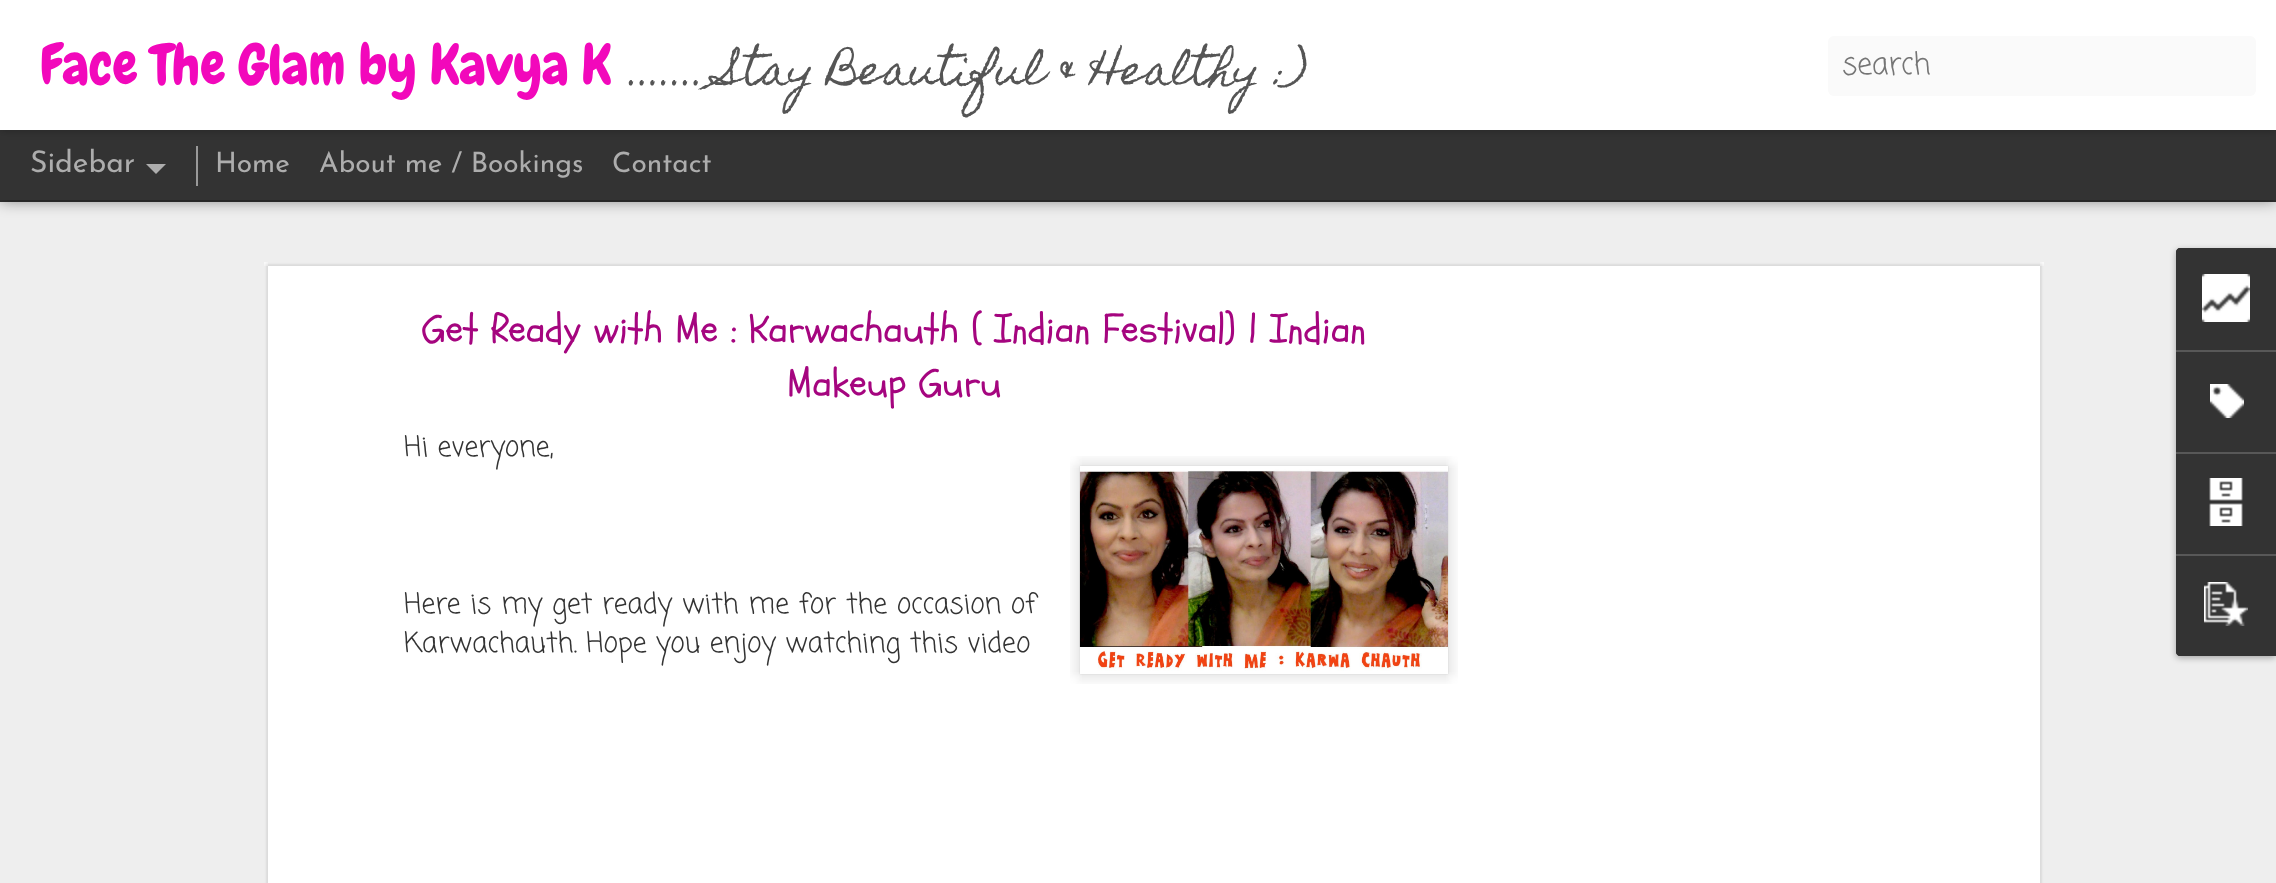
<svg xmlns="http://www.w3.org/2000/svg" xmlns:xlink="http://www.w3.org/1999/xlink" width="2276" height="883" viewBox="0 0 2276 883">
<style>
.cls-1{font:56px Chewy;fill:#f208bb}
.cls-2{font:40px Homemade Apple;fill:#555555}
.cls-3{font:30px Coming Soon;fill:#757575}
.cls-4{font:100 30px Josefin Sans;fill:#adadad}
.cls-5{font:100 28px Josefin Sans;fill:#adadad}
.cls-6{font:40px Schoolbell;fill:#a5057f}
.cls-7{font:28px Coming Soon;fill:#333333}
</style>
<rect width="100%" height="100%" fill="#333333"/>
<rect fill="#eeeeee" x="0" y="202" width="2276" height="681"/>
<rect fill="#000000" fill-opacity="0.5" filter="blur(8px)" x="0" y="130" width="2276" height="70"/>
<rect fill="#333333" x="0" y="130" width="2276" height="70"/>
<rect fill="#000000" fill-opacity="0.3" filter="blur(5px)" x="0" y="0" width="2276" height="130"/>
<rect fill="#ffffff" x="0" y="0" width="2276" height="130"/>
<rect fill="#fafafa" x="1828" y="36" width="428" height="60" rx="6"/>
<path fill="#adadad" d="M146 164H166L156 174Z"/>
<rect fill="#999999" x="196" y="146" width="2" height="40"/>
<rect fill="#ffffff" x="264" y="262" width="1780" height="621"/>
<image xlink:href="image0.png" x="264" y="262" width="1780" height="621"/>
<image xlink:href="image1.png" x="1070" y="456" width="388" height="228"/>
<image xlink:href="image2.png" x="1079" y="471" width="369" height="197"/>
<rect fill="#000000" fill-opacity="0.3" filter="blur(3px)" x="2176" y="250" width="100" height="408" rx="4"/>
<path fill="#333333" d="M2180 248H2276V656H2180C2178 656 2176 654 2176 652V252C2176 250 2178 248 2180 248Z"/>
<path fill="#333333" d="M2180 248H2276V350H2176V252C2176 250 2178 248 2180 248Z"/>
<image xlink:href="image3.png" x="2202" y="274" width="48" height="48"/>
<rect fill="#585858" x="2176" y="350" width="100" height="2"/>
<image xlink:href="image4.png" x="2210" y="384" width="34" height="34"/>
<rect fill="#585858" x="2176" y="452" width="100" height="2"/>
<image xlink:href="image5.png" x="2209" y="478" width="34" height="48"/>
<path fill="#333333" d="M2176 554H2276V656H2180C2178 656 2176 654 2176 652Z"/>
<rect fill="#585858" x="2176" y="554" width="100" height="2"/>
<image xlink:href="image6.png" x="2204" y="582" width="44" height="44"/>
<text class="cls-1" x="40" y="84">Face The Glam by Kavya K</text>
<text class="cls-2" x="630" y="84">....... Stay Beautiful &amp; Healthy :)</text>
<text class="cls-3" x="1842" y="74">search</text>
<text class="cls-4" x="30" y="172">Sidebar</text>
<text class="cls-5" x="215" y="172">Home</text>
<text class="cls-5" x="319" y="172">About me / Bookings</text>
<text class="cls-5" x="612" y="172">Contact</text>
<text class="cls-6" x="422" y="342">Get Ready with Me : Karwachauth ( Indian Festival) | Indian</text>
<text class="cls-6" x="787" y="396">Makeup Guru</text>
<text class="cls-7" x="404" y="456">Hi everyone,</text>
<text class="cls-7"><tspan x="404" y="613" word-spacing="0.4">Here is my get ready with me for the occasion of</tspan><tspan x="404" y="652">Karwachauth. Hope you enjoy watching this video</tspan></text>
</svg>
